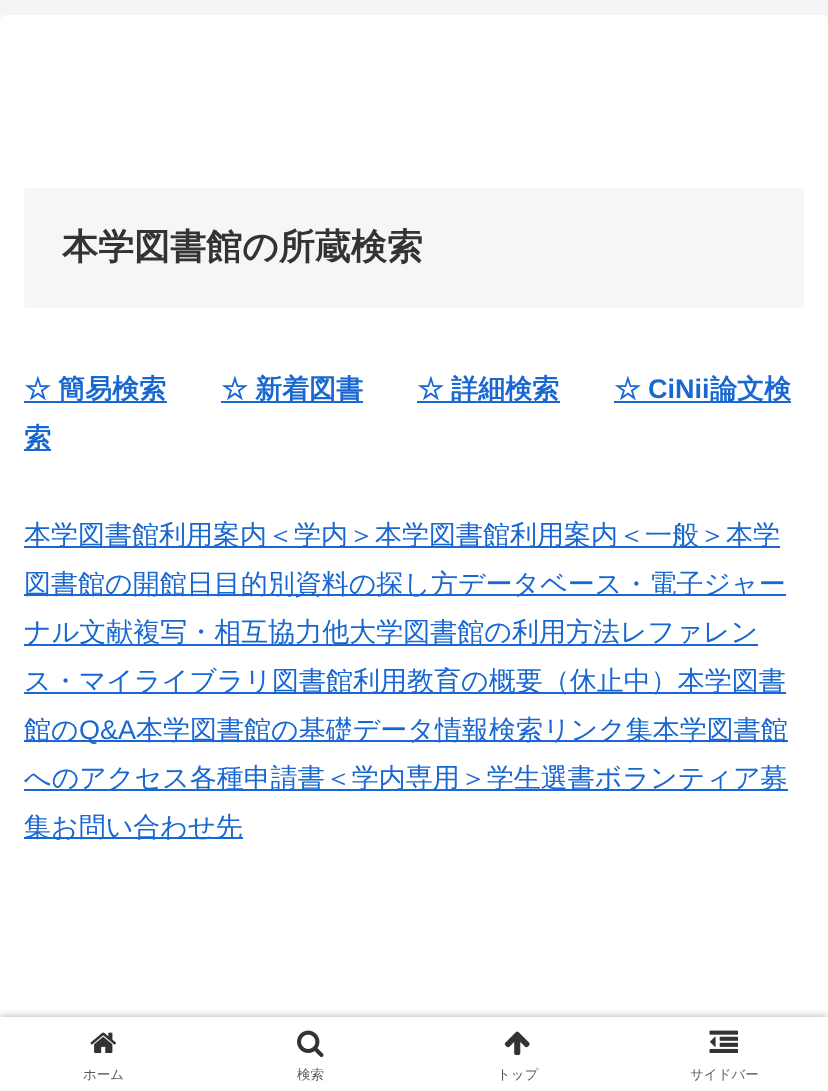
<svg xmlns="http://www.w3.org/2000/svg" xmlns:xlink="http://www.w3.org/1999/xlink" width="828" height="1091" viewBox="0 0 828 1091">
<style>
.cls-1{font:bold 36px WenQuanYi Zen Hei;fill:#333333}
.cls-2{font:bold 27px WenQuanYi Zen Hei;fill:#1967d2}
.cls-3{font:bold 27px Liberation Sans;fill:#1967d2}
.cls-4{font:500 27px WenQuanYi Zen Hei;fill:#1967d2}
.cls-5{font:27px Liberation Sans;fill:#1967d2}
.cls-6{font:500 13.5px WenQuanYi Zen Hei;fill:#5c5c5c}
</style>
<defs>
<clipPath id="clip1"><rect x="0" y="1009" width="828" height="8"/></clipPath>
</defs>
<rect width="100%" height="100%" fill="#f4f5f7"/>
<rect fill="#ffffff" x="0" y="15" width="828" height="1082" rx="6"/>
<rect fill="#f5f6f7" x="24" y="188" width="780" height="120" rx="3"/>
<rect fill="#1967d2" x="24" y="401" width="143" height="2"/>
<rect fill="#1967d2" x="221" y="401" width="142" height="2"/>
<rect fill="#1967d2" x="417" y="401" width="143" height="2"/>
<rect fill="#1967d2" x="614" y="401" width="177" height="2"/>
<rect fill="#1967d2" x="24" y="449" width="27" height="2"/>
<rect fill="#1967d2" x="24" y="546" width="756" height="2"/>
<rect fill="#1967d2" x="24" y="594" width="762" height="2"/>
<rect fill="#1967d2" x="24" y="644" width="734" height="2"/>
<rect fill="#1967d2" x="24" y="692" width="762" height="2"/>
<rect fill="#1967d2" x="24" y="740" width="111" height="2"/>
<rect fill="#1967d2" x="135" y="740" width="653" height="2"/>
<rect fill="#1967d2" x="24" y="789" width="764" height="2"/>
<rect fill="#1967d2" x="24" y="837" width="219" height="2"/>
<g clip-path="url(#clip1)">
<rect fill="#a9a9a9" filter="blur(4px)" x="0" y="1017" width="828" height="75"/>
</g>
<image xlink:href="image0.png" x="90" y="1032" width="26" height="21"/>
<image xlink:href="image1.png" x="297" y="1030" width="27" height="28"/>
<image xlink:href="image2.png" x="504" y="1031" width="26" height="25"/>
<image xlink:href="image3.png" x="709" y="1030" width="29" height="23"/>
<text class="cls-1" x="62" y="259">本学図書館の所蔵検索</text>
<text class="cls-2" x="24" y="398" word-spacing="-1">☆ 簡易検索</text>
<text class="cls-2" x="221" y="398" word-spacing="-1">☆ 新着図書</text>
<text class="cls-2" x="417" y="398" word-spacing="-1">☆ 詳細検索</text>
<text class="cls-2" x="614" y="398">☆</text>
<text class="cls-3" x="648" y="398">CiNii</text>
<text class="cls-2" x="710" y="398">論文検</text>
<text class="cls-2" x="24" y="447">索</text>
<text class="cls-4"><tspan x="24" y="544">本学図書館利用案内＜学内＞本学図書館利用案内＜一般＞本学</tspan><tspan x="24" y="593">図書館の開館日目的別資料の探し方データベース・電子ジャー</tspan><tspan x="24" y="641">ナル文献複写・相互協力他大学図書館の利用方法レファレン</tspan><tspan x="24" y="690">ス・マイライブラリ図書館利用教育の概要（休止中）本学図書</tspan><tspan x="24" y="739">館の</tspan></text>
<text class="cls-5" x="79" y="739">Q&amp;A</text>
<text class="cls-4" x="136" y="739">本学図書館の基礎データ情報検索リンク集本学図書館</text>
<text class="cls-4"><tspan x="24" y="787">へのアクセス各種申請書＜学内専用＞学生選書ボランティア募</tspan><tspan x="24" y="836">集お問い合わせ先</tspan></text>
<text class="cls-6" x="83" y="1079">ホーム</text>
<text class="cls-6" x="297" y="1079">検索</text>
<text class="cls-6" x="497" y="1079">トップ</text>
<text class="cls-6" x="690" y="1079">サイドバー</text>
</svg>
